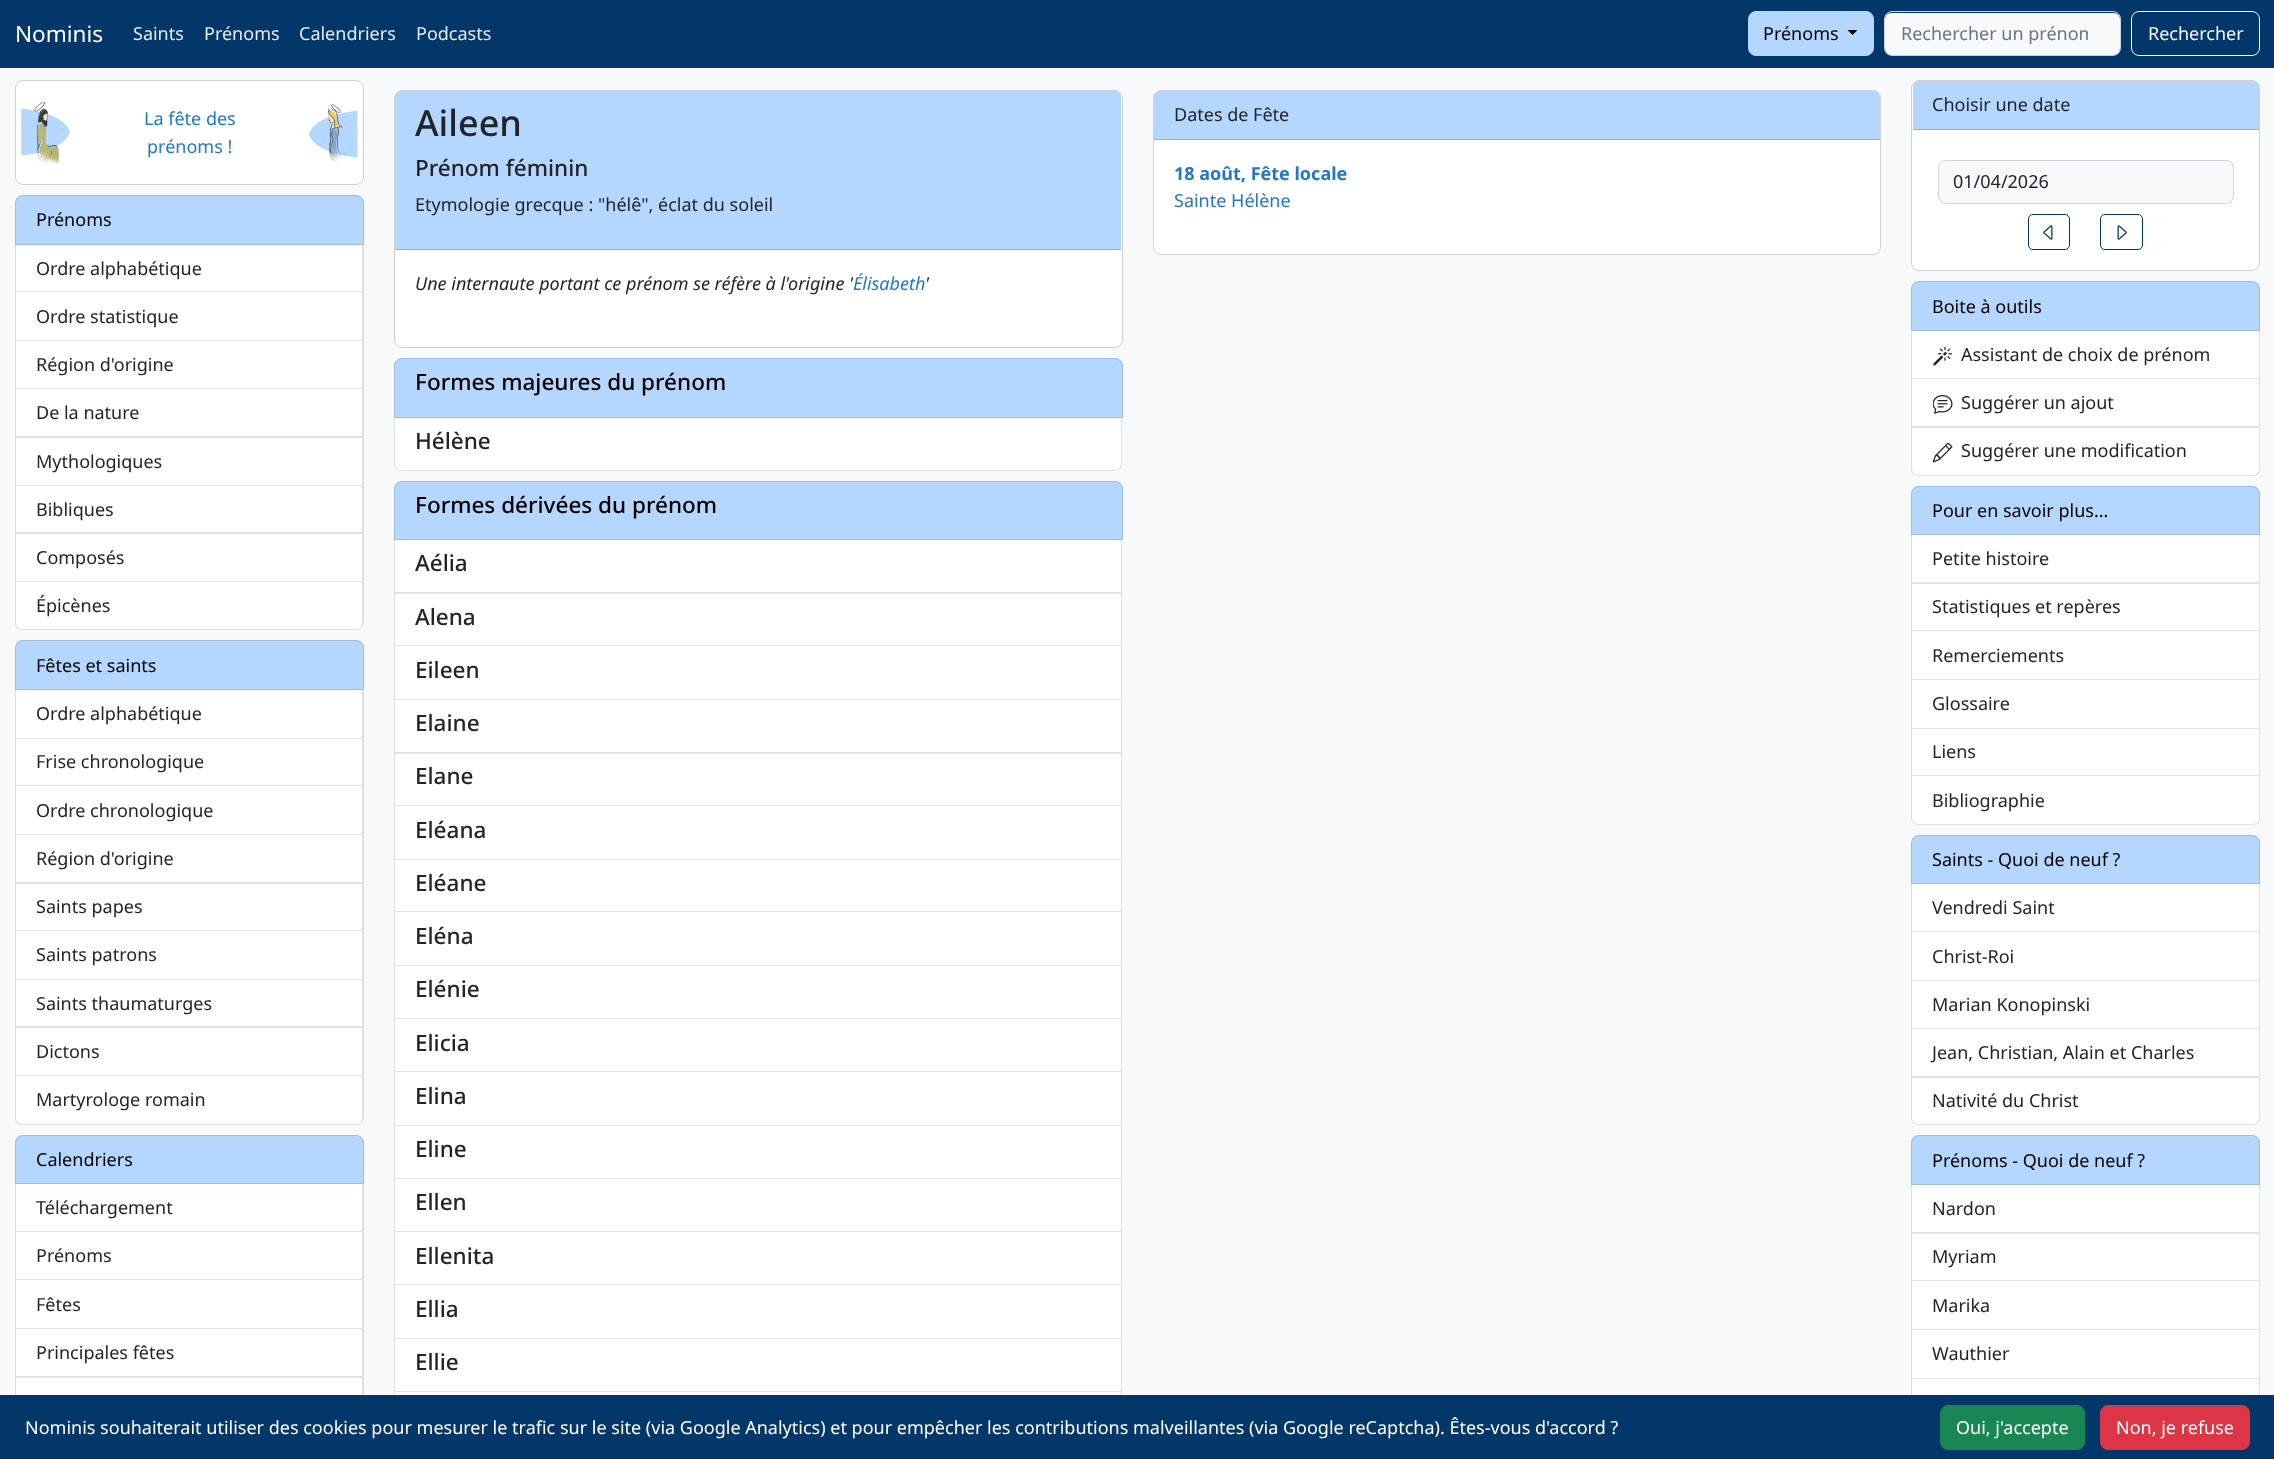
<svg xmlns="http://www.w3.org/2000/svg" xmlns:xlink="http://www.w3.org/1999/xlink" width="2274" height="1459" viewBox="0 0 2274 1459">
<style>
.cls-1{font:22.5px Noto Sans;fill:#ffffff}
.cls-2{font:18px Noto Sans;fill:#e6ebf0}
.cls-3{font:18px Noto Sans;fill:#000000}
.cls-4{font:18px Noto Sans;fill:#6c757d}
.cls-5{font:18px Noto Sans;fill:#f8f9fa}
.cls-6{font:18px Noto Sans;fill:#2277c8}
.cls-7{font:18px Noto Sans;fill:#212529}
.cls-8{font:500 36px Noto Sans;fill:#212529}
.cls-9{font:500 22.5px Noto Sans;fill:#212529}
.cls-10{font:italic 18px Noto Sans;fill:#212529}
.cls-11{font:italic 18px Noto Sans;fill:#2277c8}
.cls-12{font:500 22.5px Noto Sans;fill:#000000}
.cls-13{font:bold 18px Noto Sans;fill:#2277c8}
.cls-14{font:18px Noto Sans;fill:#ffffff}
</style>
<defs>
<clipPath id="clip1"><rect x="1900" y="21" width="188" height="24"/></clipPath>
</defs>
<rect width="100%" height="100%" fill="#f8f9fa"/>
<rect fill="#033769" x="0" y="0" width="2274" height="68"/>
<rect fill="#b5d6ff" stroke="#b5d6ff" x="1748.5" y="11.5" width="125" height="44" rx="7.5"/>
<path fill="#000000" d="M1847.5 30H1857.5L1852.5 35Z"/>
<rect fill="#f8f9fa" x="1885" y="13" width="235" height="42" rx="6"/>
<rect fill="none" stroke="#ced4da" x="1884.5" y="11.5" width="236" height="44" rx="7.5"/>
<rect fill="none" stroke="#f8f9fa" x="2131.5" y="11.5" width="128" height="44" rx="7.5"/>
<rect fill="#ffffff" x="15" y="80" width="349" height="105" rx="8"/>
<rect fill="none" stroke="#000000" stroke-opacity="0.18" x="15.5" y="80.5" width="348" height="104" rx="7.5"/>
<image xlink:href="image0.png" x="21" y="102" width="49" height="62"/>
<image xlink:href="image1.png" x="307" y="103" width="51" height="59"/>
<path fill="#b5d6ff" d="M23 195H356C360.5 195 364 198.5 364 203V245H15V203C15 198.5 18.5 195 23 195Z"/>
<path fill="none" stroke="#000000" stroke-opacity="0.12" d="M23 195.5H356C360 195.5 363.5 199 363.5 203V244.5H15.5V203C15.5 199 19 195.5 23 195.5Z"/>
<rect fill="#ffffff" x="15" y="245" width="349" height="338"/>
<path fill="#dfdfdf" d="M364 245V292L362 291V245Z"/>
<path fill="#000000" fill-opacity="0.12" d="M364 292H15L16 291H362Z"/>
<path fill="#000000" fill-opacity="0.12" d="M15 292V245H16V291Z"/>
<path fill="#dfdfdf" d="M364 292V341L362 340V292Z"/>
<path fill="#000000" fill-opacity="0.12" d="M364 341H15L16 340H362Z"/>
<path fill="#000000" fill-opacity="0.12" d="M15 341V292H16V340Z"/>
<path fill="#dfdfdf" d="M364 341V389L362 388V341Z"/>
<path fill="#000000" fill-opacity="0.12" d="M364 389H15L16 388H362Z"/>
<path fill="#000000" fill-opacity="0.12" d="M15 389V341H16V388Z"/>
<path fill="#dfdfdf" d="M364 389V438L362 436V389Z"/>
<path fill="#000000" fill-opacity="0.12" d="M364 438H15L16 436H362Z"/>
<path fill="#000000" fill-opacity="0.12" d="M15 438V389H16V436Z"/>
<path fill="#dfdfdf" d="M364 438V486L362 485V438Z"/>
<path fill="#000000" fill-opacity="0.12" d="M364 486H15L16 485H362Z"/>
<path fill="#000000" fill-opacity="0.12" d="M15 486V438H16V485Z"/>
<path fill="#dfdfdf" d="M364 486V534L362 532V486Z"/>
<path fill="#000000" fill-opacity="0.12" d="M364 534H15L16 532H362Z"/>
<path fill="#000000" fill-opacity="0.12" d="M15 534V486H16V532Z"/>
<path fill="#dfdfdf" d="M364 534V582L362 581V534Z"/>
<path fill="#000000" fill-opacity="0.12" d="M364 582H15L16 581H362Z"/>
<path fill="#000000" fill-opacity="0.12" d="M15 582V534H16V581Z"/>
<path fill="#ffffff" d="M15 583H364V622C364 626.5 360.5 630 356 630H23C18.5 630 15 626.5 15 622Z"/>
<path fill="#000000" fill-opacity="0.12" fill-rule="evenodd" d="M15 582H364V622C364 627 360 630 356 630H22C18 630 15 627 15 622ZM16 582H362V622C362 626 360 629 356 629H22C19 629 16 626 16 622Z"/>
<path fill="#b5d6ff" d="M23 640H356C360.5 640 364 643.5 364 648V690H15V648C15 643.5 18.5 640 23 640Z"/>
<path fill="none" stroke="#000000" stroke-opacity="0.12" d="M23 640.5H356C360 640.5 363.5 644 363.5 648V689.5H15.5V648C15.5 644 19 640.5 23 640.5Z"/>
<rect fill="#ffffff" x="15" y="690" width="349" height="386"/>
<path fill="#dfdfdf" d="M364 690V739L362 738V690Z"/>
<path fill="#000000" fill-opacity="0.12" d="M364 739H15L16 738H362Z"/>
<path fill="#000000" fill-opacity="0.12" d="M15 739V690H16V738Z"/>
<path fill="#dfdfdf" d="M364 739V786L362 785V739Z"/>
<path fill="#000000" fill-opacity="0.12" d="M364 786H15L16 785H362Z"/>
<path fill="#000000" fill-opacity="0.12" d="M15 786V739H16V785Z"/>
<path fill="#dfdfdf" d="M364 786V835L362 834V786Z"/>
<path fill="#000000" fill-opacity="0.12" d="M364 835H15L16 834H362Z"/>
<path fill="#000000" fill-opacity="0.12" d="M15 835V786H16V834Z"/>
<path fill="#dfdfdf" d="M364 835V884L362 882V835Z"/>
<path fill="#000000" fill-opacity="0.12" d="M364 884H15L16 882H362Z"/>
<path fill="#000000" fill-opacity="0.12" d="M15 884V835H16V882Z"/>
<path fill="#dfdfdf" d="M364 884V931L362 930V884Z"/>
<path fill="#000000" fill-opacity="0.12" d="M364 931H15L16 930H362Z"/>
<path fill="#000000" fill-opacity="0.12" d="M15 931V884H16V930Z"/>
<path fill="#dfdfdf" d="M364 931V980L362 979V931Z"/>
<path fill="#000000" fill-opacity="0.12" d="M364 980H15L16 979H362Z"/>
<path fill="#000000" fill-opacity="0.12" d="M15 980V931H16V979Z"/>
<path fill="#dfdfdf" d="M364 980V1028L362 1026V980Z"/>
<path fill="#000000" fill-opacity="0.12" d="M364 1028H15L16 1026H362Z"/>
<path fill="#000000" fill-opacity="0.12" d="M15 1028V980H16V1026Z"/>
<path fill="#dfdfdf" d="M364 1028V1076L362 1075V1028Z"/>
<path fill="#000000" fill-opacity="0.12" d="M364 1076H15L16 1075H362Z"/>
<path fill="#000000" fill-opacity="0.12" d="M15 1076V1028H16V1075Z"/>
<path fill="#ffffff" d="M15 1076H364V1117C364 1121.5 360.5 1125 356 1125H23C18.5 1125 15 1121.5 15 1117Z"/>
<path fill="#000000" fill-opacity="0.12" fill-rule="evenodd" d="M15 1076H364V1118C364 1122 360 1125 356 1125H22C18 1125 15 1122 15 1118ZM16 1076H362V1118C362 1121 360 1124 356 1124H22C19 1124 16 1121 16 1118Z"/>
<path fill="#b5d6ff" d="M23 1135H356C360.5 1135 364 1138.5 364 1143V1184H15V1143C15 1138.5 18.5 1135 23 1135Z"/>
<path fill="none" stroke="#000000" stroke-opacity="0.12" d="M23 1135.5H356C360 1135.5 363.5 1139 363.5 1143V1183.5H15.5V1143C15.5 1139 19 1135.5 23 1135.5Z"/>
<rect fill="#ffffff" x="15" y="1184" width="349" height="194"/>
<path fill="#dfdfdf" d="M364 1184V1232L362 1231V1184Z"/>
<path fill="#000000" fill-opacity="0.12" d="M364 1232H15L16 1231H362Z"/>
<path fill="#000000" fill-opacity="0.12" d="M15 1232V1184H16V1231Z"/>
<path fill="#dfdfdf" d="M364 1232V1280L362 1279V1232Z"/>
<path fill="#000000" fill-opacity="0.12" d="M364 1280H15L16 1279H362Z"/>
<path fill="#000000" fill-opacity="0.12" d="M15 1280V1232H16V1279Z"/>
<path fill="#dfdfdf" d="M364 1280V1329L362 1328V1280Z"/>
<path fill="#000000" fill-opacity="0.12" d="M364 1329H15L16 1328H362Z"/>
<path fill="#000000" fill-opacity="0.12" d="M15 1329V1280H16V1328Z"/>
<path fill="#dfdfdf" d="M364 1329V1378L362 1376V1329Z"/>
<path fill="#000000" fill-opacity="0.12" d="M364 1378H15L16 1376H362Z"/>
<path fill="#000000" fill-opacity="0.12" d="M15 1378V1329H16V1376Z"/>
<rect fill="#ffffff" x="15" y="1378" width="347" height="17"/>
<path fill="#dfdfdf" d="M364 1378V1425L362 1424V1378Z"/>
<path fill="#000000" fill-opacity="0.12" d="M15 1425V1378H16V1424Z"/>
<rect fill="#ffffff" x="394" y="90" width="729" height="258" rx="8"/>
<rect fill="none" stroke="#000000" stroke-opacity="0.18" x="394.5" y="90.5" width="728" height="257" rx="7.5"/>
<path fill="#b5d6ff" d="M401 91H1115C1118.5 91 1121 93.5 1121 97V250H395V97C395 93.5 397.5 91 401 91Z"/>
<rect fill="#95b0d2" x="395" y="249" width="726" height="1"/>
<path fill="#b5d6ff" d="M402 358H1115C1119.5 358 1123 361.5 1123 366V418H394V366C394 361.5 397.5 358 402 358Z"/>
<path fill="none" stroke="#000000" stroke-opacity="0.12" d="M402 358.5H1115C1119 358.5 1122.5 362 1122.5 366V417.5H394.5V366C394.5 362 398 358.5 402 358.5Z"/>
<path fill="#ffffff" d="M394 418H1123V463C1123 467.5 1119.5 471 1115 471H402C397.5 471 394 467.5 394 463Z"/>
<path fill="#000000" fill-opacity="0.12" fill-rule="evenodd" d="M394 418H1122V464C1122 468 1119 471 1115 471H401C397 471 394 468 394 464ZM395 418H1121V464C1121 467 1118 470 1115 470H401C398 470 395 467 395 464Z"/>
<path fill="#b5d6ff" d="M402 481H1115C1119.5 481 1123 484.5 1123 489V540H394V489C394 484.5 397.5 481 402 481Z"/>
<path fill="none" stroke="#000000" stroke-opacity="0.12" d="M402 481.5H1115C1119 481.5 1122.5 485 1122.5 489V539.5H394.5V489C394.5 485 398 481.5 402 481.5Z"/>
<rect fill="#ffffff" x="394" y="540" width="729" height="855"/>
<path fill="#dfdfdf" d="M1122 540V594L1121 592V540Z"/>
<path fill="#000000" fill-opacity="0.12" d="M1122 594H394L395 592H1121Z"/>
<path fill="#000000" fill-opacity="0.12" d="M394 594V540H395V592Z"/>
<path fill="#dfdfdf" d="M1122 594V646L1121 645V594Z"/>
<path fill="#000000" fill-opacity="0.12" d="M1122 646H394L395 645H1121Z"/>
<path fill="#000000" fill-opacity="0.12" d="M394 646V594H395V645Z"/>
<path fill="#dfdfdf" d="M1122 646V700L1121 699V646Z"/>
<path fill="#000000" fill-opacity="0.12" d="M1122 700H394L395 699H1121Z"/>
<path fill="#000000" fill-opacity="0.12" d="M394 700V646H395V699Z"/>
<path fill="#dfdfdf" d="M1122 700V754L1121 752V700Z"/>
<path fill="#000000" fill-opacity="0.12" d="M1122 754H394L395 752H1121Z"/>
<path fill="#000000" fill-opacity="0.12" d="M394 754V700H395V752Z"/>
<path fill="#dfdfdf" d="M1122 754V806L1121 805V754Z"/>
<path fill="#000000" fill-opacity="0.12" d="M1122 806H394L395 805H1121Z"/>
<path fill="#000000" fill-opacity="0.12" d="M394 806V754H395V805Z"/>
<path fill="#dfdfdf" d="M1122 806V860L1121 859V806Z"/>
<path fill="#000000" fill-opacity="0.12" d="M1122 860H394L395 859H1121Z"/>
<path fill="#000000" fill-opacity="0.12" d="M394 860V806H395V859Z"/>
<path fill="#dfdfdf" d="M1122 860V912L1121 911V860Z"/>
<path fill="#000000" fill-opacity="0.12" d="M1122 912H394L395 911H1121Z"/>
<path fill="#000000" fill-opacity="0.12" d="M394 912V860H395V911Z"/>
<path fill="#dfdfdf" d="M1122 912V966L1121 965V912Z"/>
<path fill="#000000" fill-opacity="0.12" d="M1122 966H394L395 965H1121Z"/>
<path fill="#000000" fill-opacity="0.12" d="M394 966V912H395V965Z"/>
<path fill="#dfdfdf" d="M1122 966V1019L1121 1018V966Z"/>
<path fill="#000000" fill-opacity="0.12" d="M1122 1019H394L395 1018H1121Z"/>
<path fill="#000000" fill-opacity="0.12" d="M394 1019V966H395V1018Z"/>
<path fill="#dfdfdf" d="M1122 1019V1072L1121 1071V1019Z"/>
<path fill="#000000" fill-opacity="0.12" d="M1122 1072H394L395 1071H1121Z"/>
<path fill="#000000" fill-opacity="0.12" d="M394 1072V1019H395V1071Z"/>
<path fill="#dfdfdf" d="M1122 1072V1126L1121 1125V1072Z"/>
<path fill="#000000" fill-opacity="0.12" d="M1122 1126H394L395 1125H1121Z"/>
<path fill="#000000" fill-opacity="0.12" d="M394 1126V1072H395V1125Z"/>
<path fill="#dfdfdf" d="M1122 1126V1179L1121 1178V1126Z"/>
<path fill="#000000" fill-opacity="0.12" d="M1122 1179H394L395 1178H1121Z"/>
<path fill="#000000" fill-opacity="0.12" d="M394 1179V1126H395V1178Z"/>
<path fill="#dfdfdf" d="M1122 1179V1232L1121 1231V1179Z"/>
<path fill="#000000" fill-opacity="0.12" d="M1122 1232H394L395 1231H1121Z"/>
<path fill="#000000" fill-opacity="0.12" d="M394 1232V1179H395V1231Z"/>
<path fill="#dfdfdf" d="M1122 1232V1285L1121 1284V1232Z"/>
<path fill="#000000" fill-opacity="0.12" d="M1122 1285H394L395 1284H1121Z"/>
<path fill="#000000" fill-opacity="0.12" d="M394 1285V1232H395V1284Z"/>
<path fill="#dfdfdf" d="M1122 1285V1339L1121 1338V1285Z"/>
<path fill="#000000" fill-opacity="0.12" d="M1122 1339H394L395 1338H1121Z"/>
<path fill="#000000" fill-opacity="0.12" d="M394 1339V1285H395V1338Z"/>
<path fill="#dfdfdf" d="M1122 1339V1392L1121 1391V1339Z"/>
<path fill="#000000" fill-opacity="0.12" d="M1122 1392H394L395 1391H1121Z"/>
<path fill="#000000" fill-opacity="0.12" d="M394 1392V1339H395V1391Z"/>
<path fill="#dfdfdf" d="M1122 1392V1445L1121 1444V1392Z"/>
<path fill="#000000" fill-opacity="0.12" d="M394 1445V1392H395V1444Z"/>
<rect fill="#ffffff" x="1153" y="90" width="728" height="165" rx="8"/>
<rect fill="none" stroke="#000000" stroke-opacity="0.18" x="1153.5" y="90.5" width="727" height="164" rx="7.5"/>
<path fill="#b5d6ff" d="M1160 91H1874C1877.5 91 1880 93.5 1880 97V140H1154V97C1154 93.5 1156.5 91 1160 91Z"/>
<rect fill="#95b0d2" x="1154" y="139" width="726" height="1"/>
<rect fill="#ffffff" x="1911" y="80" width="349" height="191" rx="8"/>
<rect fill="none" stroke="#000000" stroke-opacity="0.18" x="1911.5" y="80.5" width="348" height="190" rx="7.5"/>
<path fill="#b5d6ff" d="M1919 81H2253C2256.5 81 2259 83.5 2259 87V130H1913V87C1913 83.5 1915.5 81 1919 81Z"/>
<rect fill="#95b0d2" x="1913" y="129" width="346" height="1"/>
<rect fill="#f8f9fa" x="1939" y="161" width="294" height="42" rx="6"/>
<rect fill="none" stroke="#ced4da" x="1938.5" y="160.5" width="295" height="43" rx="7.5"/>
<rect fill="none" stroke="#033769" x="2028.5" y="214.5" width="41" height="35" rx="4.5"/>
<image xlink:href="image2.png" x="2043" y="225" width="10" height="15"/>
<rect fill="none" stroke="#033769" x="2100.5" y="214.5" width="42" height="35" rx="4.5"/>
<image xlink:href="image3.png" x="2117" y="225" width="10" height="15"/>
<path fill="#b5d6ff" d="M1919 281H2252C2256.5 281 2260 284.5 2260 289V331H1911V289C1911 284.5 1914.5 281 1919 281Z"/>
<path fill="none" stroke="#000000" stroke-opacity="0.12" d="M1919 281.5H2252C2256 281.5 2259.5 285 2259.5 289V330.5H1911.5V289C1911.5 285 1915 281.5 1919 281.5Z"/>
<rect fill="#ffffff" x="1911" y="331" width="349" height="97"/>
<path fill="#dfdfdf" d="M2260 331V379L2259 378V331Z"/>
<path fill="#000000" fill-opacity="0.12" d="M2260 379H1911L1912 378H2259Z"/>
<path fill="#000000" fill-opacity="0.12" d="M1911 379V331H1912V378Z"/>
<image xlink:href="image4.png" x="1933" y="346" width="19" height="20"/>
<path fill="#dfdfdf" d="M2260 379V428L2259 426V379Z"/>
<path fill="#000000" fill-opacity="0.12" d="M2260 428H1911L1912 426H2259Z"/>
<path fill="#000000" fill-opacity="0.12" d="M1911 428V379H1912V426Z"/>
<image xlink:href="image5.png" x="1933" y="395" width="20" height="19"/>
<path fill="#ffffff" d="M1911 428H2260V468C2260 472.5 2256.5 476 2252 476H1919C1914.5 476 1911 472.5 1911 468Z"/>
<path fill="#000000" fill-opacity="0.12" fill-rule="evenodd" d="M1911 428H2260V469C2260 473 2257 476 2252 476H1919C1915 476 1911 473 1911 469ZM1912 428H2259V469C2259 472 2256 475 2252 475H1919C1915 475 1912 472 1912 469Z"/>
<image xlink:href="image6.png" x="1933" y="443" width="20" height="20"/>
<path fill="#b5d6ff" d="M1919 486H2252C2256.5 486 2260 489.5 2260 494V535H1911V494C1911 489.5 1914.5 486 1919 486Z"/>
<path fill="none" stroke="#000000" stroke-opacity="0.12" d="M1919 486.5H2252C2256 486.5 2259.5 490 2259.5 494V534.5H1911.5V494C1911.5 490 1915 486.5 1919 486.5Z"/>
<rect fill="#ffffff" x="1911" y="535" width="349" height="241"/>
<path fill="#dfdfdf" d="M2260 535V584L2259 582V535Z"/>
<path fill="#000000" fill-opacity="0.12" d="M2260 584H1911L1912 582H2259Z"/>
<path fill="#000000" fill-opacity="0.12" d="M1911 584V535H1912V582Z"/>
<path fill="#dfdfdf" d="M2260 584V631L2259 630V584Z"/>
<path fill="#000000" fill-opacity="0.12" d="M2260 631H1911L1912 630H2259Z"/>
<path fill="#000000" fill-opacity="0.12" d="M1911 631V584H1912V630Z"/>
<path fill="#dfdfdf" d="M2260 631V680L2259 679V631Z"/>
<path fill="#000000" fill-opacity="0.12" d="M2260 680H1911L1912 679H2259Z"/>
<path fill="#000000" fill-opacity="0.12" d="M1911 680V631H1912V679Z"/>
<path fill="#dfdfdf" d="M2260 680V729L2259 728V680Z"/>
<path fill="#000000" fill-opacity="0.12" d="M2260 729H1911L1912 728H2259Z"/>
<path fill="#000000" fill-opacity="0.12" d="M1911 729V680H1912V728Z"/>
<path fill="#dfdfdf" d="M2260 729V776L2259 775V729Z"/>
<path fill="#000000" fill-opacity="0.12" d="M2260 776H1911L1912 775H2259Z"/>
<path fill="#000000" fill-opacity="0.12" d="M1911 776V729H1912V775Z"/>
<path fill="#ffffff" d="M1911 776H2260V817C2260 821.5 2256.5 825 2252 825H1919C1914.5 825 1911 821.5 1911 817Z"/>
<path fill="#000000" fill-opacity="0.12" fill-rule="evenodd" d="M1911 776H2260V818C2260 822 2257 825 2252 825H1919C1915 825 1911 822 1911 818ZM1912 776H2259V818C2259 821 2256 824 2252 824H1919C1915 824 1912 821 1912 818Z"/>
<path fill="#b5d6ff" d="M1919 835H2252C2256.5 835 2260 838.5 2260 843V884H1911V843C1911 838.5 1914.5 835 1919 835Z"/>
<path fill="none" stroke="#000000" stroke-opacity="0.12" d="M1919 835.5H2252C2256 835.5 2259.5 839 2259.5 843V883.5H1911.5V843C1911.5 839 1915 835.5 1919 835.5Z"/>
<rect fill="#ffffff" x="1911" y="884" width="349" height="194"/>
<path fill="#dfdfdf" d="M2260 884V932L2259 931V884Z"/>
<path fill="#000000" fill-opacity="0.12" d="M2260 932H1911L1912 931H2259Z"/>
<path fill="#000000" fill-opacity="0.12" d="M1911 932V884H1912V931Z"/>
<path fill="#dfdfdf" d="M2260 932V981L2259 980V932Z"/>
<path fill="#000000" fill-opacity="0.12" d="M2260 981H1911L1912 980H2259Z"/>
<path fill="#000000" fill-opacity="0.12" d="M1911 981V932H1912V980Z"/>
<path fill="#dfdfdf" d="M2260 981V1029L2259 1028V981Z"/>
<path fill="#000000" fill-opacity="0.12" d="M2260 1029H1911L1912 1028H2259Z"/>
<path fill="#000000" fill-opacity="0.12" d="M1911 1029V981H1912V1028Z"/>
<path fill="#dfdfdf" d="M2260 1029V1078L2259 1076V1029Z"/>
<path fill="#000000" fill-opacity="0.12" d="M2260 1078H1911L1912 1076H2259Z"/>
<path fill="#000000" fill-opacity="0.12" d="M1911 1078V1029H1912V1076Z"/>
<path fill="#ffffff" d="M1911 1078H2260V1117C2260 1121.5 2256.5 1125 2252 1125H1919C1914.5 1125 1911 1121.5 1911 1117Z"/>
<path fill="#000000" fill-opacity="0.12" fill-rule="evenodd" d="M1911 1078H2260V1118C2260 1122 2257 1125 2252 1125H1919C1915 1125 1911 1122 1911 1118ZM1912 1078H2259V1118C2259 1121 2256 1124 2252 1124H1919C1915 1124 1912 1121 1912 1118Z"/>
<path fill="#b5d6ff" d="M1919 1135H2252C2256.5 1135 2260 1138.5 2260 1143V1185H1911V1143C1911 1138.5 1914.5 1135 1919 1135Z"/>
<path fill="none" stroke="#000000" stroke-opacity="0.12" d="M1919 1135.5H2252C2256 1135.5 2259.5 1139 2259.5 1143V1184.5H1911.5V1143C1911.5 1139 1915 1135.5 1919 1135.5Z"/>
<rect fill="#ffffff" x="1911" y="1185" width="349" height="210"/>
<path fill="#dfdfdf" d="M2260 1185V1234L2259 1232V1185Z"/>
<path fill="#000000" fill-opacity="0.12" d="M2260 1234H1911L1912 1232H2259Z"/>
<path fill="#000000" fill-opacity="0.12" d="M1911 1234V1185H1912V1232Z"/>
<path fill="#dfdfdf" d="M2260 1234V1281L2259 1280V1234Z"/>
<path fill="#000000" fill-opacity="0.12" d="M2260 1281H1911L1912 1280H2259Z"/>
<path fill="#000000" fill-opacity="0.12" d="M1911 1281V1234H1912V1280Z"/>
<path fill="#dfdfdf" d="M2260 1281V1330L2259 1329V1281Z"/>
<path fill="#000000" fill-opacity="0.12" d="M2260 1330H1911L1912 1329H2259Z"/>
<path fill="#000000" fill-opacity="0.12" d="M1911 1330V1281H1912V1329Z"/>
<path fill="#dfdfdf" d="M2260 1330V1379L2259 1378V1330Z"/>
<path fill="#000000" fill-opacity="0.12" d="M2260 1379H1911L1912 1378H2259Z"/>
<path fill="#000000" fill-opacity="0.12" d="M1911 1379V1330H1912V1378Z"/>
<path fill="#000000" fill-opacity="0.12" fill-rule="evenodd" d="M1911 1379H2260V1419C2260 1423 2257 1426 2252 1426H1919C1915 1426 1911 1423 1911 1419ZM1912 1379H2259V1419C2259 1422 2256 1425 2252 1425H1919C1915 1425 1912 1422 1912 1419Z"/>
<rect fill="#033769" x="0" y="1395" width="2274" height="64"/>
<rect fill="#198754" stroke="#198754" x="1940.5" y="1405.5" width="144" height="44" rx="7.5"/>
<rect fill="#dc3545" stroke="#dc3545" x="2100.5" y="1405.5" width="149" height="44" rx="7.5"/>
<text class="cls-1" x="15" y="42">Nominis</text>
<text class="cls-2" x="133" y="40">Saints</text>
<text class="cls-2" x="204" y="40">Prénoms</text>
<text class="cls-2" x="299" y="40">Calendriers</text>
<text class="cls-2" x="416" y="40">Podcasts</text>
<text class="cls-3" x="1763" y="40">Prénoms</text>
<g clip-path="url(#clip1)">
<text class="cls-4" x="1901" y="40">Rechercher un prénom</text>
</g>
<text class="cls-5" x="2148" y="40">Rechercher</text>
<text class="cls-6" x="144" y="125">La fête des</text>
<text class="cls-6" x="147" y="153">prénoms !</text>
<text class="cls-3" x="36" y="226">Prénoms</text>
<text class="cls-7" x="36" y="275">Ordre alphabétique</text>
<text class="cls-7" x="36" y="323">Ordre statistique</text>
<text class="cls-7" x="36" y="371">Région d'origine</text>
<text class="cls-7" x="36" y="419">De la nature</text>
<text class="cls-7" x="36" y="468">Mythologiques</text>
<text class="cls-7" x="36" y="516">Bibliques</text>
<text class="cls-7" x="36" y="564">Composés</text>
<text class="cls-7" x="36" y="612">Épicènes</text>
<text class="cls-3" x="36" y="672">Fêtes et saints</text>
<text class="cls-7" x="36" y="720">Ordre alphabétique</text>
<text class="cls-7" x="36" y="768">Frise chronologique</text>
<text class="cls-7" x="36" y="817">Ordre chronologique</text>
<text class="cls-7" x="36" y="865">Région d'origine</text>
<text class="cls-7" x="36" y="913">Saints papes</text>
<text class="cls-7" x="36" y="961">Saints patrons</text>
<text class="cls-7" x="36" y="1010">Saints thaumaturges</text>
<text class="cls-7" x="36" y="1058">Dictons</text>
<text class="cls-7" x="36" y="1106">Martyrologe romain</text>
<text class="cls-3" x="36" y="1166">Calendriers</text>
<text class="cls-7" x="36" y="1214">Téléchargement</text>
<text class="cls-7" x="36" y="1262">Prénoms</text>
<text class="cls-7" x="36" y="1311">Fêtes</text>
<text class="cls-7" x="36" y="1359">Principales fêtes</text>
<text class="cls-8" x="415" y="136">Aileen</text>
<text class="cls-9" x="415" y="176">Prénom féminin</text>
<text class="cls-7" x="415" y="211">Etymologie grecque : "hélê", éclat du soleil</text>
<text class="cls-10" x="415" y="290">Une internaute portant ce prénom se réfère à l'origine '</text>
<text class="cls-11" x="853" y="290">Élisabeth</text>
<text class="cls-10" x="925" y="290">'</text>
<text class="cls-12" x="415" y="390">Formes majeures du prénom</text>
<text class="cls-9" x="415" y="449">Hélène</text>
<text class="cls-12" x="415" y="513">Formes dérivées du prénom</text>
<text class="cls-9" x="415" y="571">Aélia</text>
<text class="cls-9" x="415" y="625">Alena</text>
<text class="cls-9" x="415" y="678">Eileen</text>
<text class="cls-9" x="415" y="731">Elaine</text>
<text class="cls-9" x="415" y="784">Elane</text>
<text class="cls-9" x="415" y="838">Eléana</text>
<text class="cls-9" x="415" y="891">Eléane</text>
<text class="cls-9" x="415" y="944">Eléna</text>
<text class="cls-9" x="415" y="997">Elénie</text>
<text class="cls-9" x="415" y="1051">Elicia</text>
<text class="cls-9" x="415" y="1104">Elina</text>
<text class="cls-9" x="415" y="1157">Eline</text>
<text class="cls-9" x="415" y="1210">Ellen</text>
<text class="cls-9" x="415" y="1264">Ellenita</text>
<text class="cls-9" x="415" y="1317">Ellia</text>
<text class="cls-9" x="415" y="1370">Ellie</text>
<text class="cls-7" x="1174" y="121">Dates de Fête</text>
<text class="cls-13" x="1174" y="180">18 août, Fête locale</text>
<text class="cls-6" x="1174" y="207">Sainte Hélène</text>
<text class="cls-7" x="1932" y="111">Choisir une date</text>
<text class="cls-7" x="1953" y="188">01/04/2026</text>
<text class="cls-3" x="1932" y="313">Boite à outils</text>
<text class="cls-7" x="1961" y="361">Assistant de choix de prénom</text>
<text class="cls-7" x="1961" y="409">Suggérer un ajout</text>
<text class="cls-7" x="1961" y="457">Suggérer une modification</text>
<text class="cls-3" x="1932" y="517">Pour en savoir plus...</text>
<text class="cls-7" x="1932" y="565">Petite histoire</text>
<text class="cls-7" x="1932" y="613">Statistiques et repères</text>
<text class="cls-7" x="1932" y="662">Remerciements</text>
<text class="cls-7" x="1932" y="710">Glossaire</text>
<text class="cls-7" x="1932" y="758">Liens</text>
<text class="cls-7" x="1932" y="807">Bibliographie</text>
<text class="cls-3" x="1932" y="866">Saints - Quoi de neuf ?</text>
<text class="cls-7" x="1932" y="914">Vendredi Saint</text>
<text class="cls-7" x="1932" y="963">Christ-Roi</text>
<text class="cls-7" x="1932" y="1011">Marian Konopinski</text>
<text class="cls-7" x="1932" y="1059">Jean, Christian, Alain et Charles</text>
<text class="cls-7" x="1932" y="1107">Nativité du Christ</text>
<text class="cls-3" x="1932" y="1167">Prénoms - Quoi de neuf ?</text>
<text class="cls-7" x="1932" y="1215">Nardon</text>
<text class="cls-7" x="1932" y="1263">Myriam</text>
<text class="cls-7" x="1932" y="1312">Marika</text>
<text class="cls-7" x="1932" y="1360">Wauthier</text>
<text class="cls-14" x="25" y="1434">Nominis souhaiterait utiliser des cookies pour mesurer le trafic sur le site (via Google Analytics) et pour empêcher les contributions malveillantes (via Google reCaptcha). Êtes-vous d'accord ?</text>
<text class="cls-14" x="1956" y="1434">Oui, j'accepte</text>
<text class="cls-14" x="2116" y="1434">Non, je refuse</text>
</svg>
